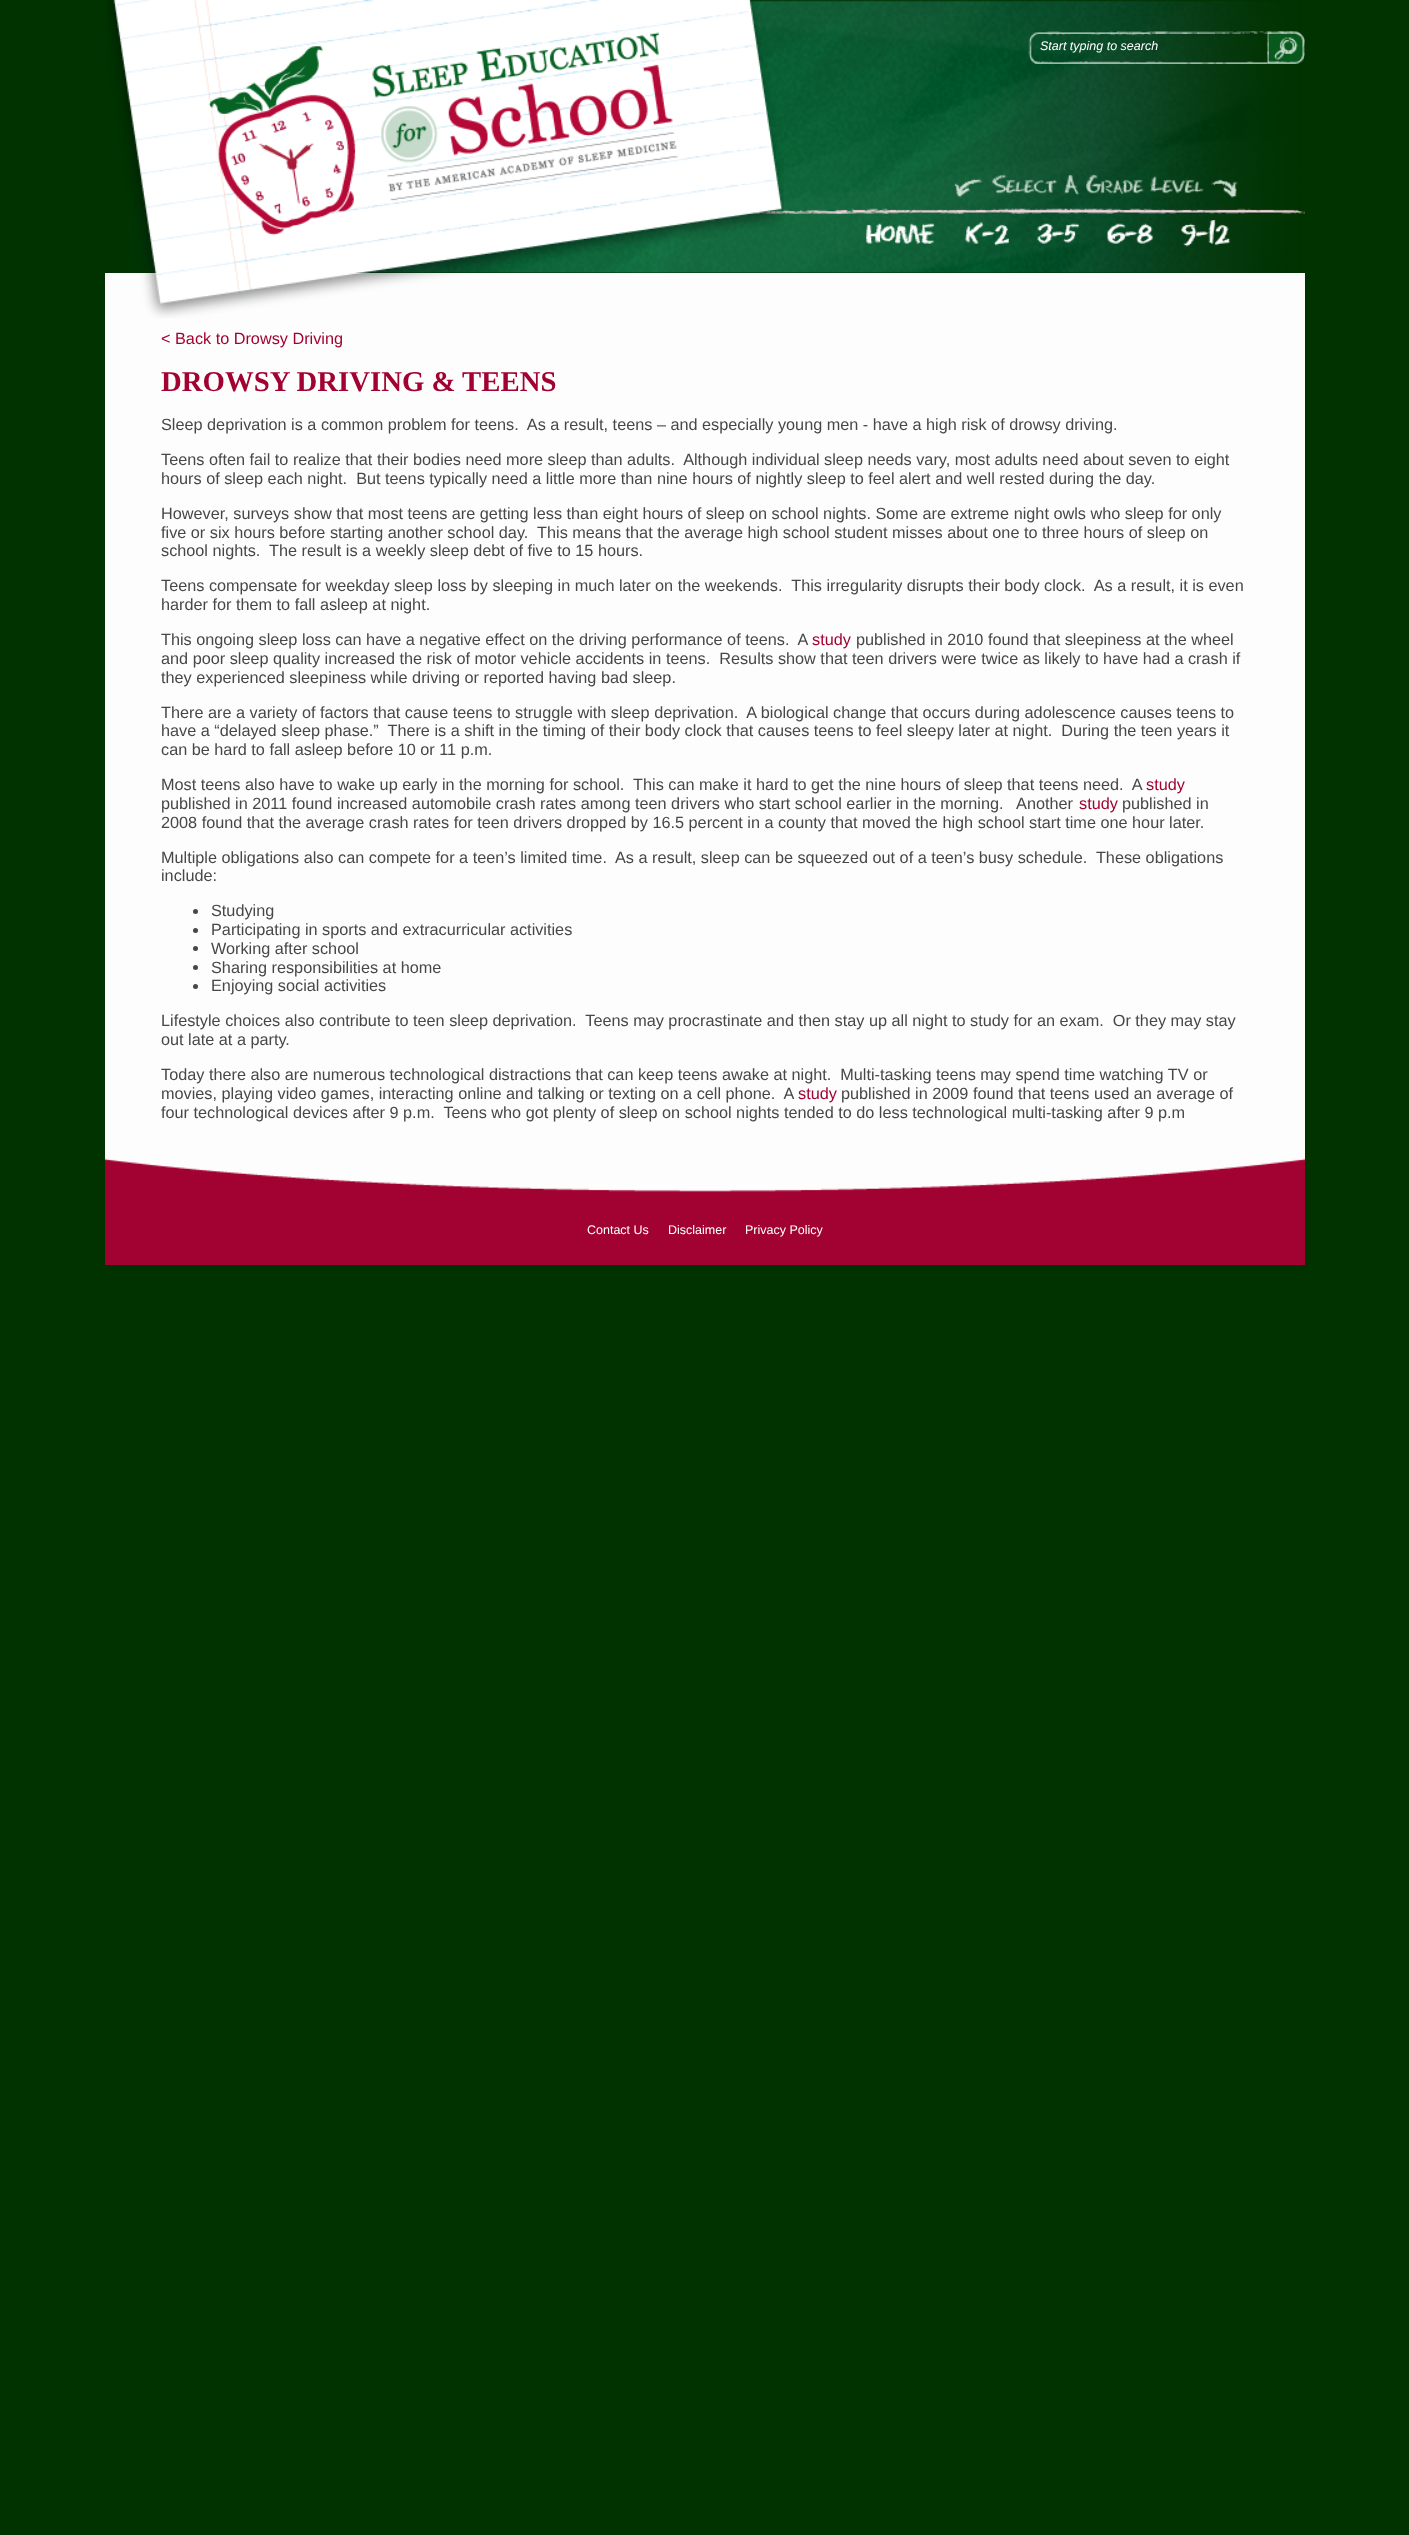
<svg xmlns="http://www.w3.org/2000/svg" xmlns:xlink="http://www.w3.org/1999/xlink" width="1409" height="2535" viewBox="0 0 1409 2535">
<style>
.cls-1{font:italic 12.5px Liberation Sans;fill:#ffffff}
.cls-2{font:16.25px Liberation Sans;fill:#a20231}
.cls-3{font:bold 28.75px Liberation Serif;fill:#a20231}
.cls-4{font:16.25px Liberation Sans;fill:#474747}
.cls-5{font:12.5px Liberation Sans;fill:#ffffff}
</style>
<rect width="100%" height="100%" fill="#003300"/>
<image xlink:href="image1.png" x="129" y="0" width="1176" height="273"/>
<rect fill="#fdfdfd" x="105" y="273" width="1200" height="919"/>
<image xlink:href="image0.png" x="107" y="0" width="677" height="318"/>
<image xlink:href="image2.png" x="1028" y="31" width="240" height="33"/>
<image xlink:href="image3.png" x="1267" y="31" width="38" height="33"/>
<image xlink:href="image4.png" x="866" y="223" width="68" height="21"/>
<image xlink:href="image5.png" x="964" y="221" width="45" height="25"/>
<image xlink:href="image6.png" x="1037" y="223" width="42" height="21"/>
<image xlink:href="image7.png" x="1107" y="223" width="46" height="21"/>
<image xlink:href="image8.png" x="1181" y="220" width="49" height="27"/>
<circle fill="#474747" cx="195.5" cy="911.5" r="2.5"/>
<circle fill="#474747" cx="195.5" cy="930.5" r="2.5"/>
<circle fill="#474747" cx="195.5" cy="948.5" r="2.5"/>
<circle fill="#474747" cx="195.5" cy="967.5" r="2.5"/>
<circle fill="#474747" cx="195.5" cy="986.5" r="2.5"/>
<image xlink:href="image9.png" x="105" y="1158" width="1200" height="107"/>
<text class="cls-1" x="1040" y="50">Start typing to search</text>
<text class="cls-2" x="161" y="344">&lt; Back to Drowsy Driving</text>
<text class="cls-3" x="161" y="391">DROWSY DRIVING &amp; TEENS</text>
<text class="cls-4" xml:space="preserve" x="161" y="430">Sleep deprivation is a common problem for teens.  As a result, teens – and especially young men - have a high risk of drowsy driving.</text>
<text class="cls-4" xml:space="preserve"><tspan x="161" y="465">Teens often fail to realize that their bodies need more sleep than adults.  Although individual sleep needs vary, most adults need about seven to eight</tspan><tspan x="161" y="484">hours of sleep each night.  But teens typically need a little more than nine hours of nightly sleep to feel alert and well rested during the day.</tspan></text>
<text class="cls-4" xml:space="preserve"><tspan x="161" y="519">However, surveys show that most teens are getting less than eight hours of sleep on school nights. Some are extreme night owls who sleep for only</tspan><tspan x="161" y="538">five or six hours before starting another school day.  This means that the average high school student misses about one to three hours of sleep on</tspan><tspan x="161" y="556">school nights.  The result is a weekly sleep debt of five to 15 hours.</tspan></text>
<text class="cls-4" xml:space="preserve"><tspan x="161" y="591">Teens compensate for weekday sleep loss by sleeping in much later on the weekends.  This irregularity disrupts their body clock.  As a result, it is even</tspan><tspan x="161" y="610">harder for them to fall asleep at night.</tspan></text>
<text class="cls-4" xml:space="preserve" x="161" y="645">This ongoing sleep loss can have a negative effect on the driving performance of teens.  A</text>
<text class="cls-2" x="812" y="645">study</text>
<text class="cls-4" x="856" y="645">published in 2010 found that sleepiness at the wheel</text>
<text class="cls-4" xml:space="preserve"><tspan x="161" y="664">and poor sleep quality increased the risk of motor vehicle accidents in teens.  Results show that teen drivers were twice as likely to have had a crash if</tspan><tspan x="161" y="683">they experienced sleepiness while driving or reported having bad sleep.</tspan></text>
<text class="cls-4" xml:space="preserve"><tspan x="161" y="718">There are a variety of factors that cause teens to struggle with sleep deprivation.  A biological change that occurs during adolescence causes teens to</tspan><tspan x="161" y="736">have a “delayed sleep phase.”  There is a shift in the timing of their body clock that causes teens to feel sleepy later at night.  During the teen years it</tspan><tspan x="161" y="755">can be hard to fall asleep before 10 or 11 p.m.</tspan></text>
<text class="cls-4" xml:space="preserve" x="161" y="790">Most teens also have to wake up early in the morning for school.  This can make it hard to get the nine hours of sleep that teens need.  A</text>
<text class="cls-2" x="1146" y="790">study</text>
<text class="cls-4" xml:space="preserve" x="161" y="809">published in 2011 found increased automobile crash rates among teen drivers who start school earlier in the morning.   Another</text>
<text class="cls-2" x="1079" y="809">study</text>
<text class="cls-4" x="1122" y="809">published in</text>
<text class="cls-4" x="161" y="828">2008 found that the average crash rates for teen drivers dropped by 16.5 percent in a county that moved the high school start time one hour later.</text>
<text class="cls-4" xml:space="preserve"><tspan x="161" y="863">Multiple obligations also can compete for a teen’s limited time.  As a result, sleep can be squeezed out of a teen’s busy schedule.  These obligations</tspan><tspan x="161" y="881">include:</tspan></text>
<text class="cls-4"><tspan x="211" y="916">Studying</tspan><tspan x="211" y="935">Participating in sports and extracurricular activities</tspan><tspan x="211" y="954">Working after school</tspan><tspan x="211" y="973">Sharing responsibilities at home</tspan><tspan x="211" y="991">Enjoying social activities</tspan></text>
<text class="cls-4" xml:space="preserve"><tspan x="161" y="1026">Lifestyle choices also contribute to teen sleep deprivation.  Teens may procrastinate and then stay up all night to study for an exam.  Or they may stay</tspan><tspan x="161" y="1045">out late at a party.</tspan></text>
<text class="cls-4" xml:space="preserve"><tspan x="161" y="1080">Today there also are numerous technological distractions that can keep teens awake at night.  Multi-tasking teens may spend time watching TV or</tspan><tspan x="161" y="1099">movies, playing video games, interacting online and talking or texting on a cell phone.  A</tspan></text>
<text class="cls-2" x="798" y="1099">study</text>
<text class="cls-4" x="841" y="1099">published in 2009 found that teens used an average of</text>
<text class="cls-4" xml:space="preserve" x="161" y="1118">four technological devices after 9 p.m.  Teens who got plenty of sleep on school nights tended to do less technological multi-tasking after 9 p.m</text>
<text class="cls-5" x="587" y="1234">Contact Us</text>
<text class="cls-5" x="668" y="1234">Disclaimer</text>
<text class="cls-5" x="745" y="1234">Privacy Policy</text>
</svg>
